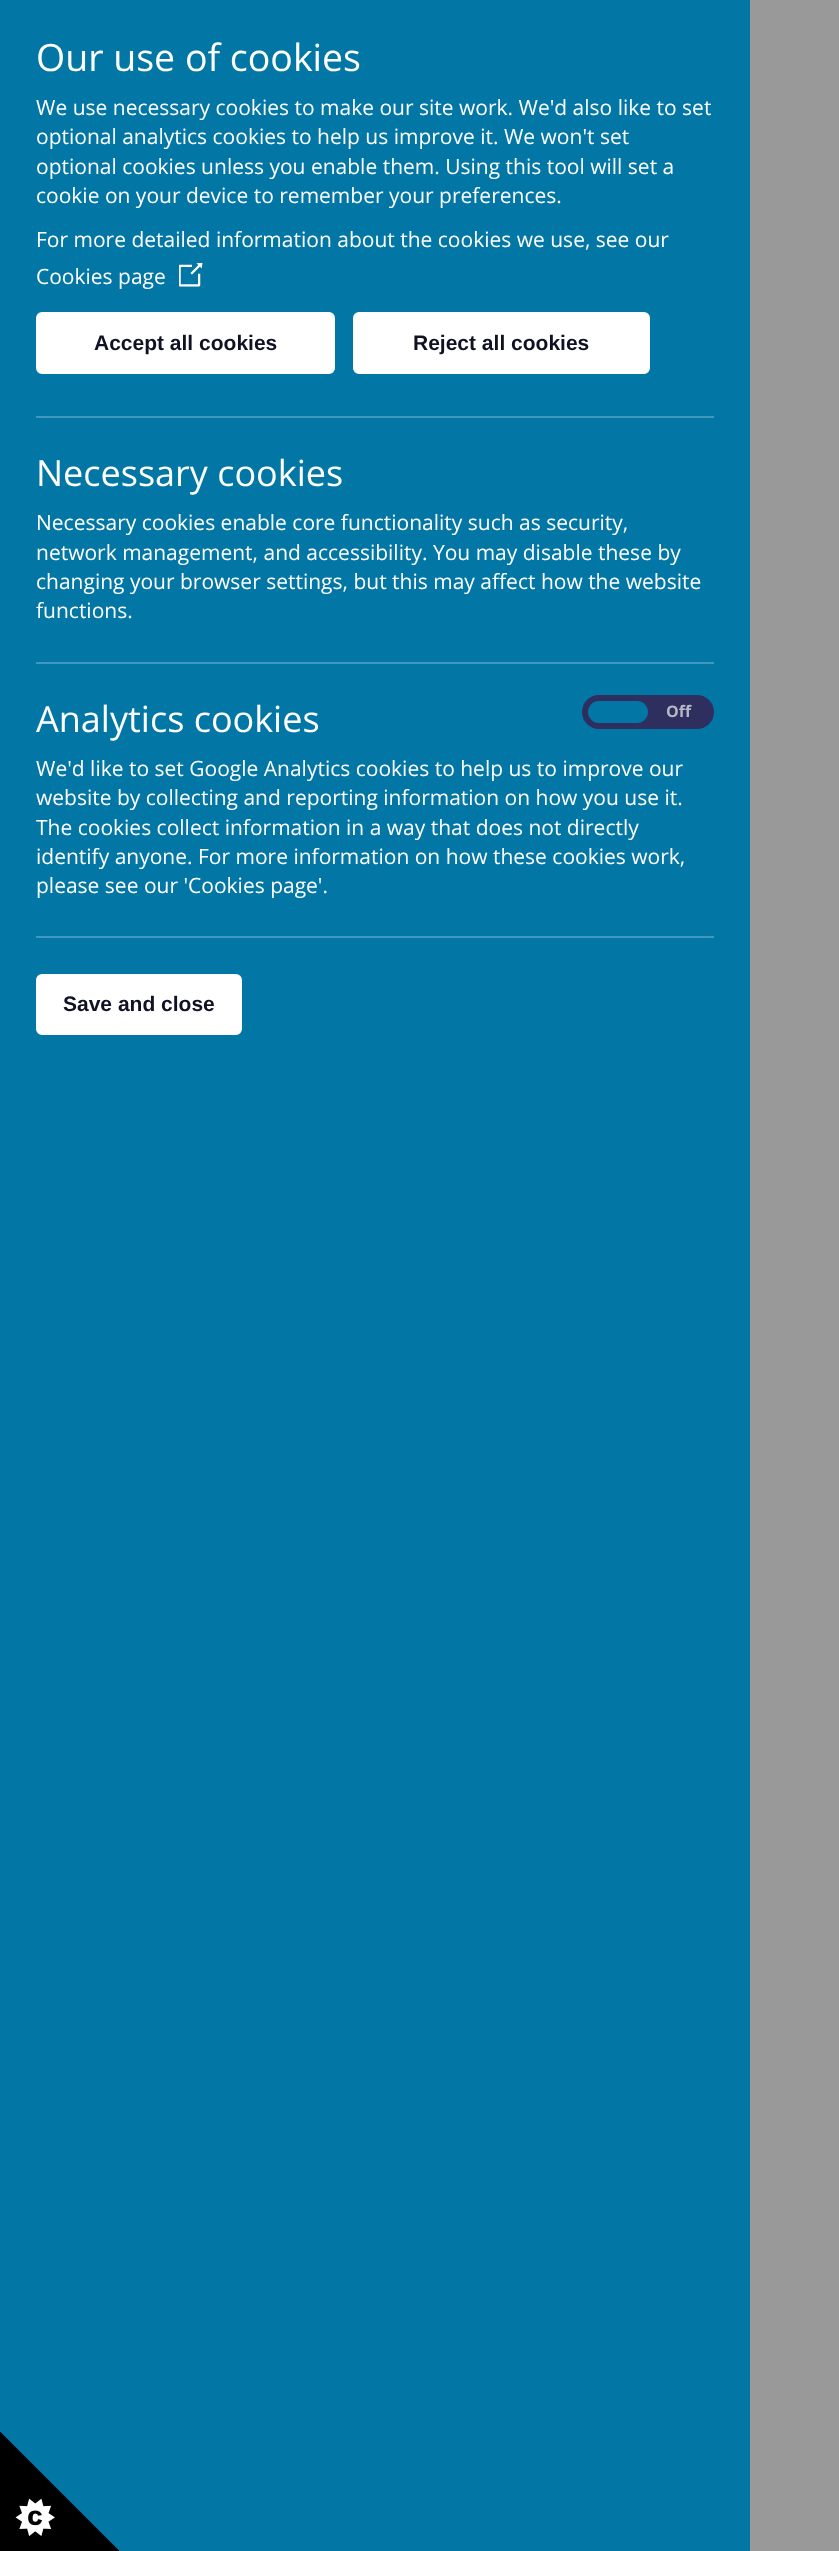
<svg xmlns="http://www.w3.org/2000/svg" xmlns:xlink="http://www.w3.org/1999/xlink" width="839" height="2551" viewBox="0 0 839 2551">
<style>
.cls-1{font:37.5px Open Sans;fill:#ffffff}
.cls-2{font:21px Open Sans;fill:#ffffff}
.cls-3{font:bold 21px Liberation Sans;fill:#111125}
.cls-4{font:36px Open Sans;fill:#ffffff}
.cls-5{font:bold 16px Open Sans;fill:#b6b6c7}
</style>
<rect width="100%" height="100%" fill="#999999"/>
<rect fill="#0276a5" x="0" y="0" width="750" height="2551"/>
<image xlink:href="image0.png" x="179" y="263" width="24" height="24"/>
<rect fill="#ffffff" stroke="#ffffff" stroke-width="3" x="37.5" y="313.5" width="296" height="59" rx="4.5"/>
<rect fill="#ffffff" stroke="#ffffff" stroke-width="3" x="354.5" y="313.5" width="294" height="59" rx="4.5"/>
<rect fill="#4198bc" x="36" y="416" width="678" height="2"/>
<rect fill="#4198bc" x="36" y="662" width="678" height="2"/>
<rect fill="#2f2f5f" stroke="#2f2f5f" stroke-width="6" x="585" y="698" width="126" height="28" rx="14"/>
<rect fill="#0276a5" x="588" y="701" width="60" height="22" rx="11"/>
<rect fill="#4198bc" x="36" y="936" width="678" height="2"/>
<rect fill="#ffffff" stroke="#ffffff" stroke-width="3" x="37.5" y="975.5" width="203" height="58" rx="4.5"/>
<image xlink:href="image1.png" x="0" y="2432" width="120" height="119"/>
<text class="cls-1" x="36" y="71">Our use of cookies</text>
<text class="cls-2"><tspan x="36" y="115">We use necessary cookies to make our site work. We'd also like to set</tspan><tspan x="36" y="144">optional analytics cookies to help us improve it. We won't set</tspan><tspan x="36" y="174">optional cookies unless you enable them. Using this tool will set a</tspan><tspan x="36" y="203">cookie on your device to remember your preferences.</tspan></text>
<text class="cls-2"><tspan x="36" y="247">For more detailed information about the cookies we use, see our</tspan><tspan x="36" y="284">Cookies page</tspan></text>
<text class="cls-3" x="94" y="350">Accept all cookies</text>
<text class="cls-3" x="413" y="350">Reject all cookies</text>
<text class="cls-4" x="36" y="486">Necessary cookies</text>
<text class="cls-2"><tspan x="36" y="530">Necessary cookies enable core functionality such as security,</tspan><tspan x="36" y="560">network management, and accessibility. You may disable these by</tspan><tspan x="36" y="589">changing your browser settings, but this may affect how the website</tspan><tspan x="36" y="618">functions.</tspan></text>
<text class="cls-4" x="36" y="732">Analytics cookies</text>
<text class="cls-5" x="666" y="717">Off</text>
<text class="cls-2"><tspan x="36" y="776">We'd like to set Google Analytics cookies to help us to improve our</tspan><tspan x="36" y="805">website by collecting and reporting information on how you use it.</tspan><tspan x="36" y="835">The cookies collect information in a way that does not directly</tspan><tspan x="36" y="864">identify anyone. For more information on how these cookies work,</tspan><tspan x="36" y="893">please see our 'Cookies page'.</tspan></text>
<text class="cls-3" x="63" y="1011">Save and close</text>
</svg>
